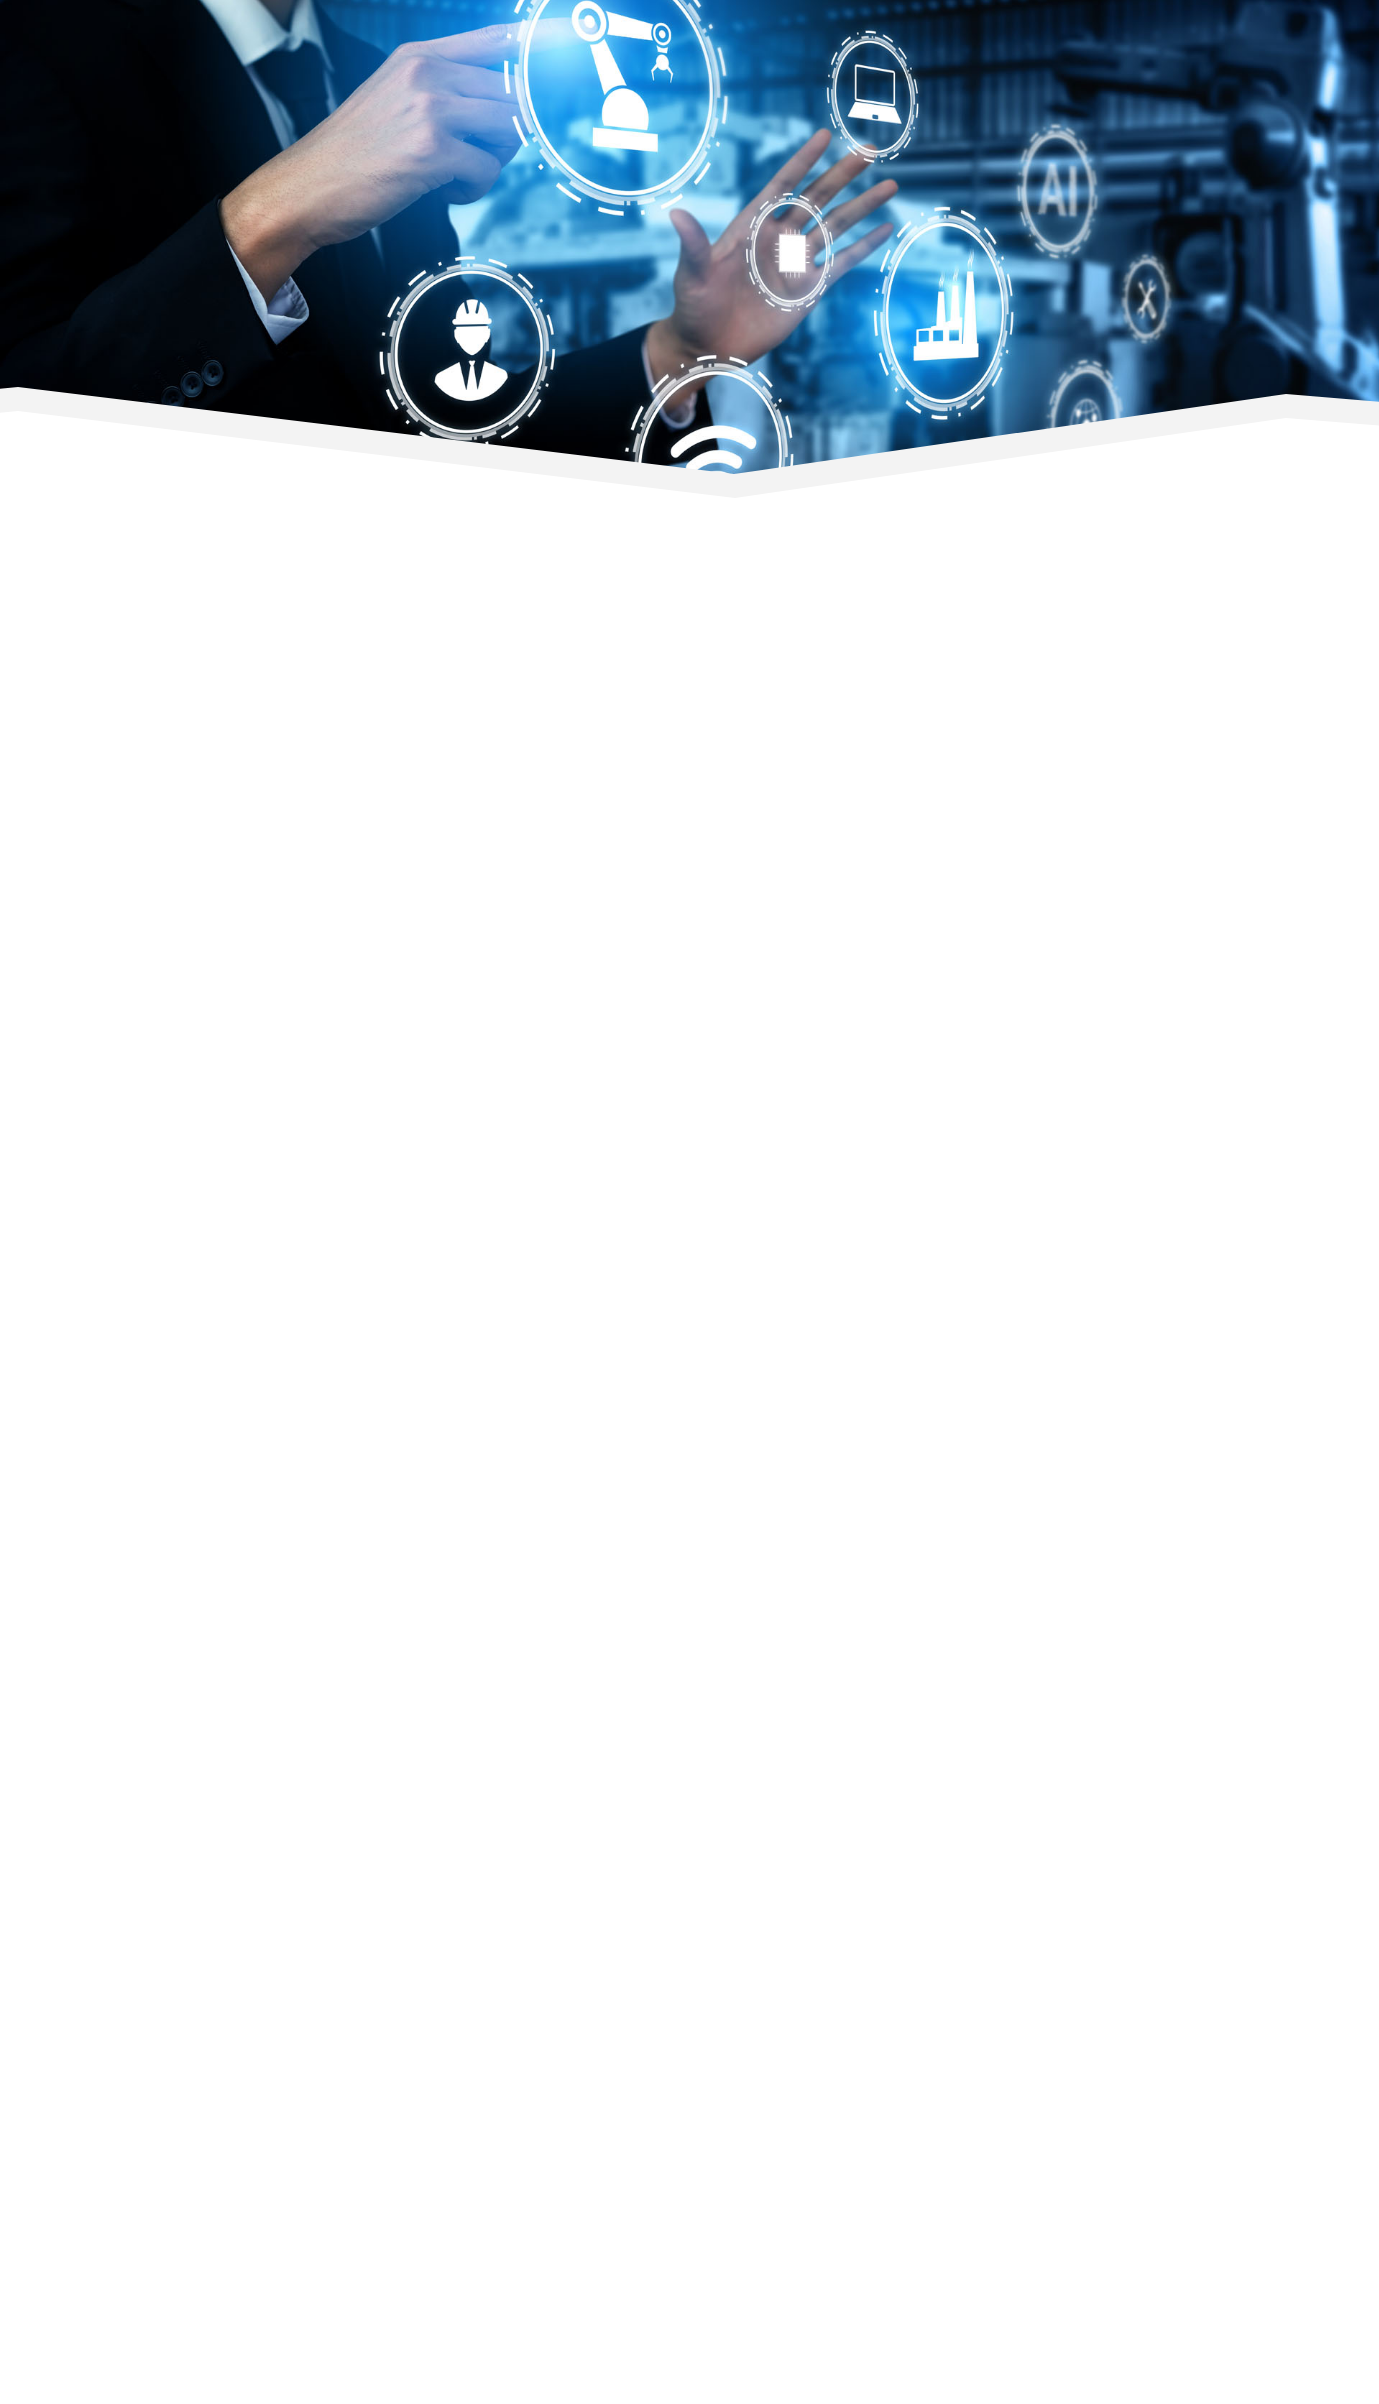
<svg xmlns="http://www.w3.org/2000/svg" xmlns:xlink="http://www.w3.org/1999/xlink" width="1379" height="2404" viewBox="0 0 1379 2404">
<defs>
<clipPath id="clip1"><rect x="0" y="342" width="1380" height="183"/></clipPath>
</defs>
<rect width="100%" height="100%" fill="#ffffff"/>
<image xlink:href="image0.png" x="0" y="0" width="1379" height="474"/>
<g clip-path="url(#clip1)">
<path fill="#f3f3f3" d="M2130 392L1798 436L1286 394L734 474L18 387L-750 465V528H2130Z"/>
<path fill="#ffffff" d="M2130 414L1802 460L1286 418L735 498L18 411L-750 489V528H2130Z"/>
</g>
</svg>
